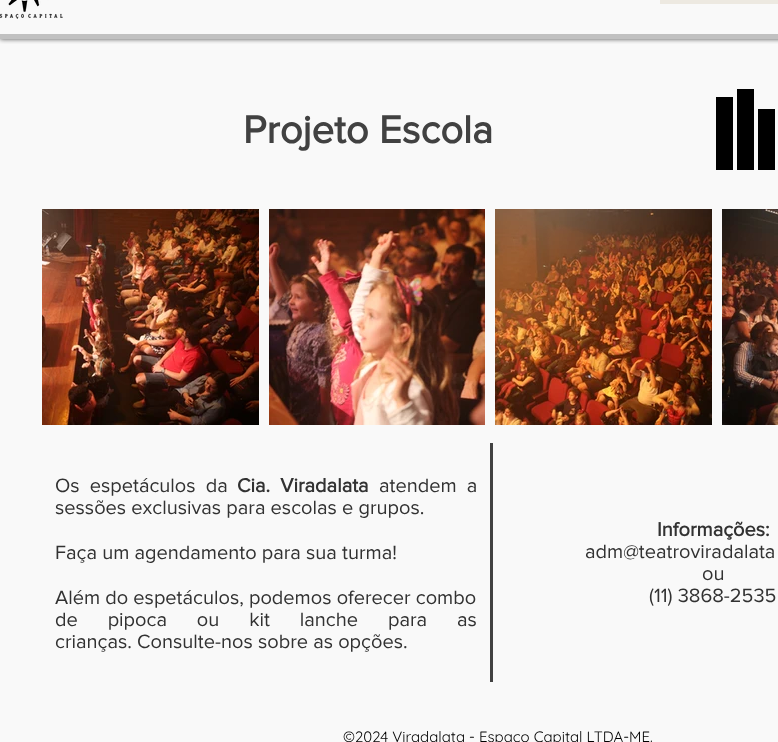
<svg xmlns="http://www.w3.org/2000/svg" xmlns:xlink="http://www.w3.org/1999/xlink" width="778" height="742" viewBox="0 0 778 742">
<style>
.cls-1{font:bold 40px 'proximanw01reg';fill:#414141}
.cls-2{font:20px 'proximanw01reg';fill:#323232}
.cls-3{font:bold 20px 'proximanw01reg';fill:#323232}
.cls-4{font:15px Quicksand;fill:#000000}
</style>
<defs>
<clipPath id="clip1"><rect x="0" y="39" width="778" height="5"/></clipPath>
</defs>
<rect width="100%" height="100%" fill="#f9f9f9"/>
<g clip-path="url(#clip1)">
<rect fill="#000000" fill-opacity="0.7" filter="blur(2.5px)" x="0" y="-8" width="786" height="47"/>
</g>
<rect fill="#c1c1c1" x="0" y="34" width="778" height="5"/>
<image xlink:href="image0.png" x="0" y="0" width="63" height="19"/>
<rect fill="#ede9e1" x="660" y="0" width="118" height="4"/>
<rect fill="#000000" x="716" y="97" width="17" height="73"/>
<rect fill="#000000" x="737" y="89" width="17" height="81"/>
<rect fill="#000000" x="758" y="109" width="17" height="61"/>
<image xlink:href="image1.png" x="42" y="209" width="217" height="216"/>
<image xlink:href="image2.png" x="269" y="209" width="216" height="216"/>
<image xlink:href="image3.png" x="495" y="209" width="217" height="216"/>
<image xlink:href="image4.png" x="722" y="209" width="56" height="216"/>
<rect fill="#424242" x="490" y="443" width="3" height="239"/>
<text class="cls-1" x="243" y="143">Projeto Escola</text>
<text class="cls-2" x="55" y="492" word-spacing="5">Os espetáculos da</text>
<text class="cls-3" x="237" y="492" word-spacing="5">Cia. Viradalata</text>
<text class="cls-2" x="379" y="492" word-spacing="5">atendem a</text>
<text class="cls-2" x="55" y="514">sessões exclusivas para escolas e grupos.</text>
<text class="cls-2" x="55" y="559">Faça um agendamento para sua turma!</text>
<text class="cls-2"><tspan x="55" y="604">Além do espetáculos, podemos oferecer combo</tspan><tspan x="55" y="626" word-spacing="24.75">de pipoca ou kit lanche para as</tspan><tspan x="55" y="648">crianças. Consulte-nos sobre as opções.</tspan></text>
<text class="cls-3" x="657" y="536">Informações:</text>
<text class="cls-2" x="585" y="558">adm@teatroviradalata</text>
<text class="cls-2" x="702" y="580">ou</text>
<text class="cls-2" x="649" y="602">(11) 3868-2535</text>
<text class="cls-4" x="343" y="742">©2024 Viradalata - Espaço Capital LTDA-ME.</text>
</svg>
